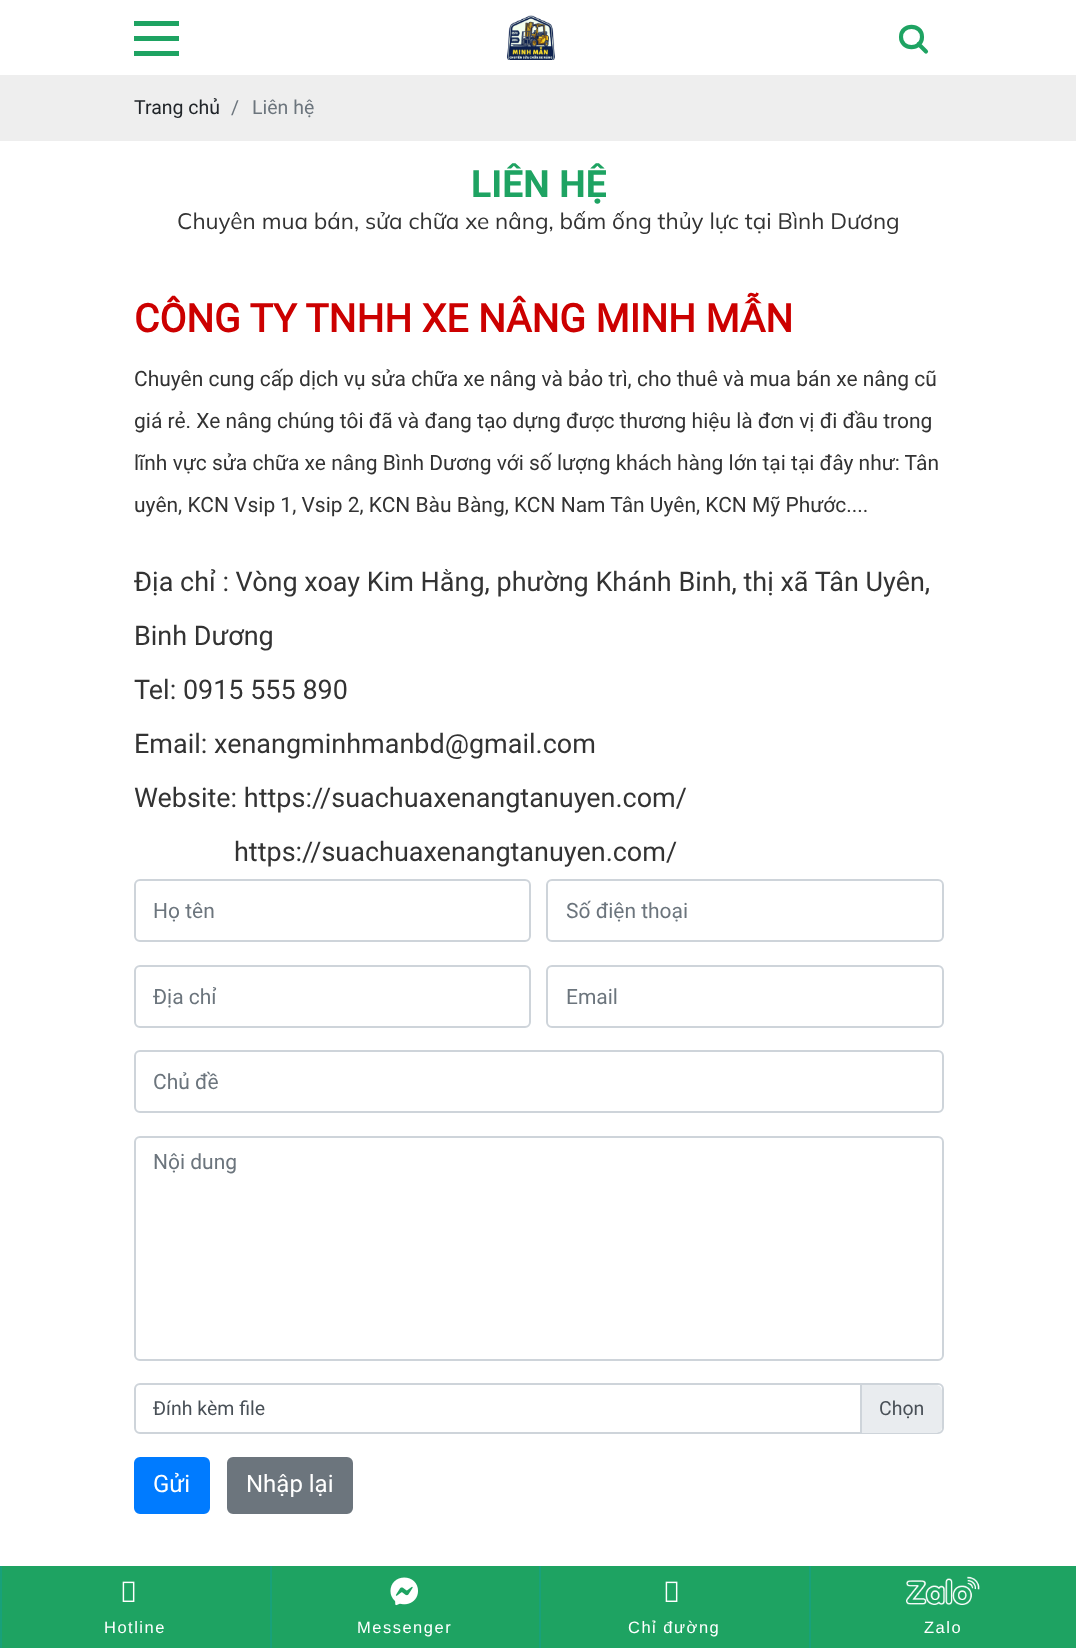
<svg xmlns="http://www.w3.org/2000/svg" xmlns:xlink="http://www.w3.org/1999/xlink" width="1076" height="1648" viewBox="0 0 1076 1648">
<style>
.cls-1{font:19.5px Roboto;fill:#212529}
.cls-2{font:19.5px Roboto;fill:#6c757d}
.cls-3{font:bold 37.5px Roboto;fill:#1ea362}
.cls-4{font:22.5px Mulish;fill:#333333}
.cls-5{font:bold 39px 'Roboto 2';fill:#cc0000}
.cls-6{font:21px Roboto;fill:#333333}
.cls-7{font:27px Roboto;fill:#333333}
.cls-8{font:21px Roboto;fill:#6c757d}
.cls-9{font:19.5px Roboto;fill:#495057}
.cls-10{font:24px Roboto;fill:#ffffff}
.cls-11{font:16.5px Liberation Sans;letter-spacing:1.5px;fill:#ffffff}
</style>
<defs>
<clipPath id="clip1"><rect x="135" y="1385" width="807" height="48" rx="5"/></clipPath>
</defs>
<rect width="100%" height="100%" fill="#ffffff"/>
<rect fill="#1ea362" x="134" y="21" width="45" height="5"/>
<rect fill="#1ea362" x="134" y="36" width="45" height="5"/>
<rect fill="#1ea362" x="134" y="51" width="45" height="5"/>
<image xlink:href="image0.png" x="506" y="15" width="49" height="45"/>
<path fill="none" stroke="#1ea362" stroke-width="4.1" stroke-linecap="round" stroke-linejoin="round" d="M918.5 44L926 51.5M922 37C922 50.5 901 50.5 901 37C901 23.5 922 23.5 922 37Z"/>
<rect fill="#eeeeee" x="0" y="75" width="1076" height="66"/>
<rect fill="none" stroke="#ced4da" stroke-width="2" x="135" y="880" width="395" height="61" rx="5"/>
<rect fill="none" stroke="#ced4da" stroke-width="2" x="547" y="880" width="396" height="61" rx="5"/>
<rect fill="none" stroke="#ced4da" stroke-width="2" x="135" y="966" width="395" height="61" rx="5"/>
<rect fill="none" stroke="#ced4da" stroke-width="2" x="547" y="966" width="396" height="61" rx="5"/>
<rect fill="none" stroke="#ced4da" stroke-width="2" x="135" y="1051" width="808" height="61" rx="5"/>
<rect fill="none" stroke="#ced4da" stroke-width="2" x="135" y="1137" width="808" height="223" rx="5"/>
<rect fill="none" stroke="#ced4da" stroke-width="2" x="135" y="1384" width="808" height="49" rx="5"/>
<g clip-path="url(#clip1)">
<path fill="#e9ecef" d="M860 1385H936C939.5 1385 942 1387.5 942 1391V1427C942 1430.5 939.5 1433 936 1433H860Z"/>
</g>
<rect fill="#ced4da" x="860" y="1385" width="2" height="48"/>
<rect fill="#007bff" stroke="#007bff" stroke-width="2" x="135" y="1458" width="74" height="55" rx="5"/>
<rect fill="#6c757d" stroke="#6c757d" stroke-width="2" x="228" y="1458" width="124" height="55" rx="5"/>
<rect fill="#1ea362" x="2" y="1566" width="1074" height="82"/>
<rect fill="#18a17a" x="0" y="1566" width="2" height="82"/>
<image xlink:href="image1.png" x="122" y="1581" width="13" height="21"/>
<rect fill="#18a17a" x="270" y="1566" width="2" height="82"/>
<image xlink:href="image2.png" x="390" y="1577" width="28" height="29"/>
<rect fill="#18a17a" x="539" y="1566" width="2" height="82"/>
<image xlink:href="image1.png" x="665" y="1581" width="13" height="21"/>
<rect fill="#18a17a" x="809" y="1566" width="2" height="82"/>
<image xlink:href="image3.png" x="906" y="1576" width="74" height="29"/>
<text class="cls-1" x="134" y="114">Trang chủ</text>
<text class="cls-2" x="231" y="114">/</text>
<text class="cls-2" x="252" y="114">Liên hệ</text>
<text class="cls-3" x="471" y="197">LIÊN HỆ</text>
<text class="cls-4" x="177" y="229">Chuyên mua bán, sửa chữa xe nâng, bấm ống thủy lực tại Bình Dương</text>
<text class="cls-5" x="134" y="332">CÔNG TY TNHH XE NÂNG MINH MẪN</text>
<text class="cls-6" x="134" y="386">Chuyên cung cấp dịch vụ sửa chữa xe nâng và bảo trì, cho thuê và mua bán xe nâng cũ</text>
<text class="cls-6" x="134" y="428">giá rẻ. Xe nâng chúng tôi đã và đang tạo dựng được thương hiệu là đơn vị đi đầu trong</text>
<text class="cls-6" x="134" y="470">lĩnh vực sửa chữa xe nâng Bình Dương với số lượng khách hàng lớn tại tại đây như: Tân</text>
<text class="cls-6" x="134" y="512">uyên, KCN Vsip 1, Vsip 2, KCN Bàu Bàng, KCN Nam Tân Uyên, KCN Mỹ Phước....</text>
<text class="cls-7" x="134" y="591">Địa chỉ : Vòng xoay Kim Hằng, phường Khánh Binh, thị xã Tân Uyên,</text>
<text class="cls-7" x="134" y="645">Binh Dương</text>
<text class="cls-7" x="134" y="699">Tel: 0915 555 890</text>
<text class="cls-7" x="134" y="753">Email: xenangminhmanbd@gmail.com</text>
<text class="cls-7" x="134" y="807">Website: https://suachuaxenangtanuyen.com/</text>
<text class="cls-7" x="234" y="861">https://suachuaxenangtanuyen.com/</text>
<text class="cls-8" x="153" y="918">Họ tên</text>
<text class="cls-8" x="566" y="918">Số điện thoại</text>
<text class="cls-8" x="153" y="1004">Địa chỉ</text>
<text class="cls-8" x="566" y="1004">Email</text>
<text class="cls-8" x="153" y="1089">Chủ đề</text>
<text class="cls-8" x="153" y="1169">Nội dung</text>
<text class="cls-9" x="153" y="1415">Đính kèm file</text>
<text class="cls-9" x="879" y="1415">Chọn</text>
<text class="cls-10" x="153" y="1492">Gửi</text>
<text class="cls-10" x="246" y="1492">Nhập lại</text>
<text class="cls-11" x="104" y="1633">Hotline</text>
<text class="cls-11" x="357" y="1633">Messenger</text>
<text class="cls-11" x="628" y="1633">Chỉ đường</text>
<text class="cls-11" x="924" y="1633">Zalo</text>
</svg>
